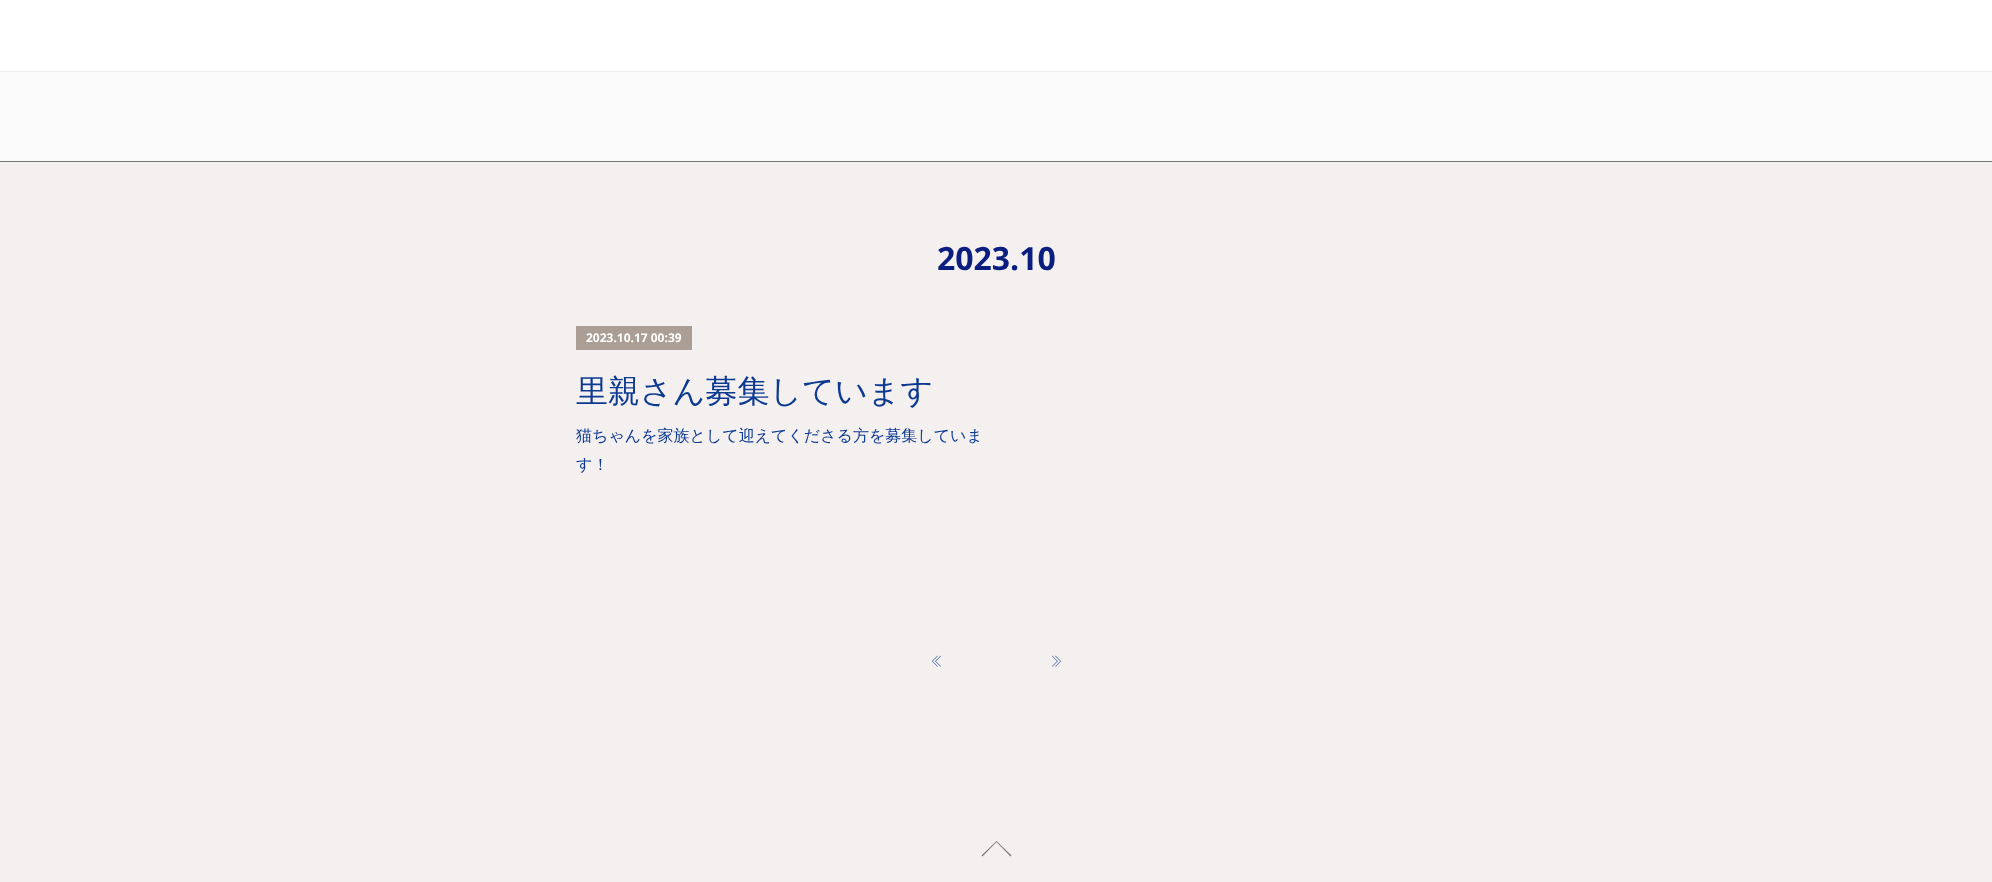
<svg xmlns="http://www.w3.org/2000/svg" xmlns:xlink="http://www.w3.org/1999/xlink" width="1992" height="882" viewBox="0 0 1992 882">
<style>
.cls-1{font:bold 32px Open Sans;fill:#0a1e80}
.cls-2{font:bold 12px Open Sans;fill:#ffffff}
.cls-3{font:500 32px WenQuanYi Zen Hei;fill:#0c3a91}
.cls-4{font:500 16px WenQuanYi Zen Hei;fill:#0c3a91}
</style>
<rect width="100%" height="100%" fill="#f5f0f0"/>
<rect fill="#ffffff" x="0" y="0" width="1992" height="71"/>
<rect fill="#eeeeee" x="0" y="71" width="1992" height="1"/>
<rect fill="#fafafa" x="0" y="72" width="1992" height="89"/>
<rect fill="#787878" x="0" y="161" width="1992" height="1"/>
<rect fill="#ab9e95" x="576" y="326" width="116" height="24"/>
<image xlink:href="image0.png" x="932" y="655" width="9" height="12"/>
<image xlink:href="image1.png" x="1052" y="655" width="9" height="12"/>
<path fill="#787878" d="M981.5 855.5L996.5 841L997 841.5L982.5 856.5Z"/>
<path fill="#787878" d="M996 841.5L996.5 841L1011.5 855.5L1010.5 856.5Z"/>
<text class="cls-1" x="937" y="270">2023.10</text>
<text class="cls-2" x="586" y="342">2023.10.17 00:39</text>
<text class="cls-3" x="576" y="402">里親さん募集しています</text>
<text class="cls-4"><tspan x="576" y="441">猫ちゃんを家族として迎えてくださる方を募集していま</tspan><tspan x="576" y="470">す！</tspan></text>
</svg>
